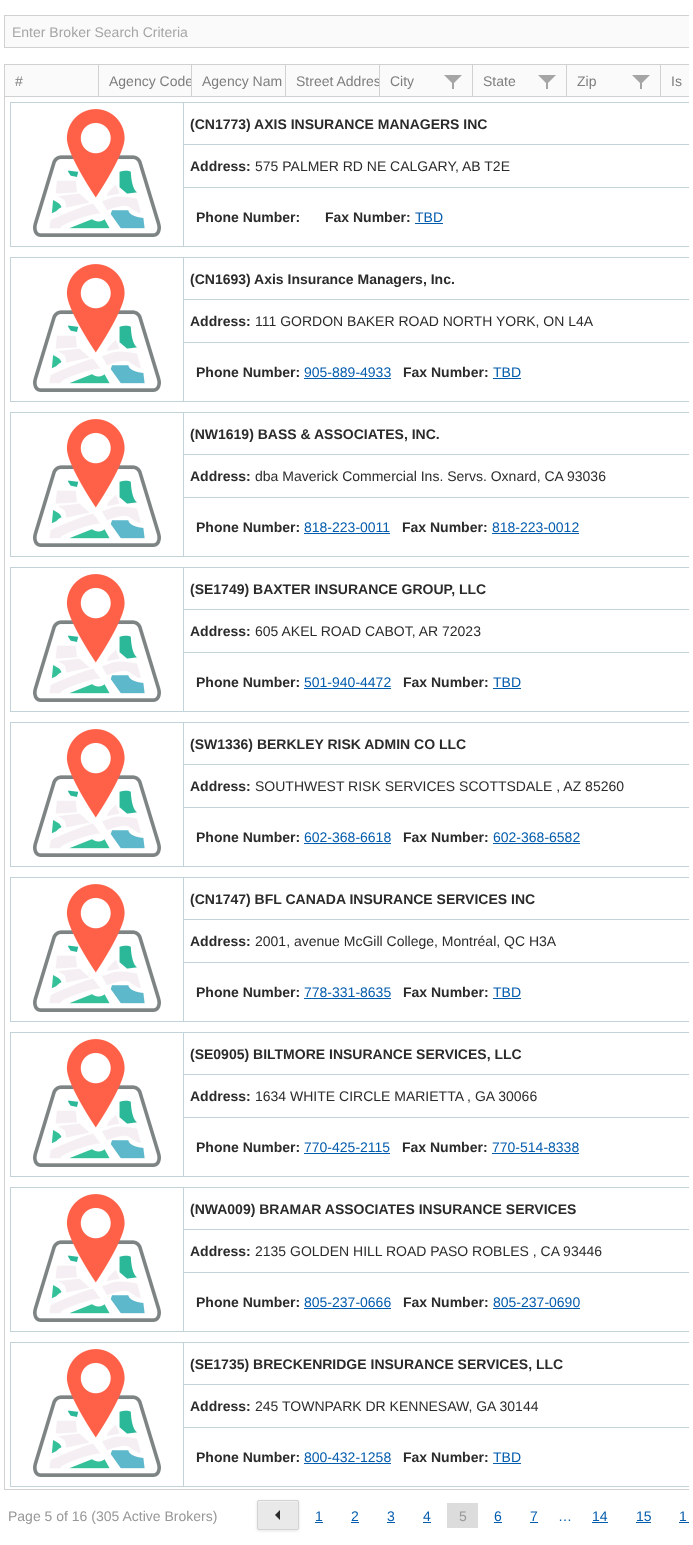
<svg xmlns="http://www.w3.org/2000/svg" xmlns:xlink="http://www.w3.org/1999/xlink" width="693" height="1545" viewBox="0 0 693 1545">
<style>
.cls-1{font:14px Liberation Sans;fill:#a6a6a6}
.cls-2{font:14px Liberation Sans;fill:#7e7e7e}
.cls-3{font:bold 14px Liberation Sans;fill:#2b2b2b}
.cls-4{font:14px Liberation Sans;fill:#2b2b2b}
.cls-5{font:14px Liberation Sans;fill:#045cad}
.cls-6{font:14px Liberation Sans;fill:#979797}
</style>
<defs>
<clipPath id="clip1"><rect x="4" y="0" width="685" height="1544"/></clipPath>
<clipPath id="clip2"><rect x="99" y="65" width="92" height="31"/></clipPath>
<clipPath id="clip3"><rect x="286" y="65" width="93" height="31"/></clipPath>
</defs>
<rect width="100%" height="100%" fill="#ffffff"/>
<rect fill="#fafafa" x="5" y="16" width="684" height="31"/>
<g clip-path="url(#clip1)">
<rect fill="none" stroke="#d1d1d1" x="4.5" y="15.5" width="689" height="32"/>
</g>
<rect fill="#d1d1d1" x="4" y="64" width="685" height="1"/>
<rect fill="#d1d1d1" x="4" y="64" width="1" height="33"/>
<rect fill="#fafafa" x="5" y="65" width="93" height="31"/>
<rect fill="#d1d1d1" x="98" y="65" width="1" height="32"/>
<rect fill="#d1d1d1" x="5" y="96" width="94" height="1"/>
<rect fill="#fafafa" x="99" y="65" width="92" height="31"/>
<rect fill="#d1d1d1" x="191" y="65" width="1" height="32"/>
<rect fill="#d1d1d1" x="99" y="96" width="93" height="1"/>
<rect fill="#fafafa" x="192" y="65" width="93" height="31"/>
<rect fill="#d1d1d1" x="285" y="65" width="1" height="32"/>
<rect fill="#d1d1d1" x="192" y="96" width="94" height="1"/>
<rect fill="#fafafa" x="286" y="65" width="93" height="31"/>
<rect fill="#d1d1d1" x="379" y="65" width="1" height="32"/>
<rect fill="#d1d1d1" x="286" y="96" width="94" height="1"/>
<rect fill="#fafafa" x="380" y="65" width="92" height="31"/>
<rect fill="#d1d1d1" x="472" y="65" width="1" height="32"/>
<rect fill="#d1d1d1" x="380" y="96" width="93" height="1"/>
<image xlink:href="image0.png" x="444" y="75" width="18" height="14"/>
<rect fill="#fafafa" x="473" y="65" width="93" height="31"/>
<rect fill="#d1d1d1" x="566" y="65" width="1" height="32"/>
<rect fill="#d1d1d1" x="473" y="96" width="94" height="1"/>
<image xlink:href="image0.png" x="538" y="75" width="18" height="14"/>
<rect fill="#fafafa" x="567" y="65" width="93" height="31"/>
<rect fill="#d1d1d1" x="660" y="65" width="1" height="32"/>
<rect fill="#d1d1d1" x="567" y="96" width="122" height="1"/>
<image xlink:href="image0.png" x="632" y="75" width="18" height="14"/>
<rect fill="#fafafa" x="661" y="65" width="28" height="31"/>
<rect fill="#d1d1d1" x="4" y="1489" width="685" height="1"/>
<rect fill="#d1d1d1" x="4" y="97" width="1" height="1393"/>
<rect fill="#c2d4da" x="183" y="102" width="506" height="1"/>
<rect fill="#c2d4da" x="183" y="144" width="506" height="1"/>
<rect fill="#c2d4da" x="183" y="187" width="506" height="1"/>
<rect fill="#c2d4da" x="183" y="246" width="506" height="1"/>
<rect fill="#c2d4da" x="183" y="187" width="1" height="60"/>
<rect fill="#c2d4da" x="183" y="144" width="1" height="44"/>
<rect fill="#c2d4da" x="183" y="102" width="1" height="43"/>
<rect fill="#c2d4da" x="10" y="102" width="174" height="1"/>
<rect fill="#c2d4da" x="10" y="246" width="174" height="1"/>
<rect fill="#c2d4da" x="10" y="102" width="1" height="145"/>
<image xlink:href="image1.png" x="33" y="109" width="128" height="128"/>
<rect fill="#045cad" x="415" y="223" width="28" height="1"/>
<rect fill="#c2d4da" x="183" y="257" width="506" height="1"/>
<rect fill="#c2d4da" x="183" y="299" width="506" height="1"/>
<rect fill="#c2d4da" x="183" y="342" width="506" height="1"/>
<rect fill="#c2d4da" x="183" y="401" width="506" height="1"/>
<rect fill="#c2d4da" x="183" y="342" width="1" height="60"/>
<rect fill="#c2d4da" x="183" y="299" width="1" height="44"/>
<rect fill="#c2d4da" x="183" y="257" width="1" height="43"/>
<rect fill="#c2d4da" x="10" y="257" width="174" height="1"/>
<rect fill="#c2d4da" x="10" y="401" width="174" height="1"/>
<rect fill="#c2d4da" x="10" y="257" width="1" height="145"/>
<image xlink:href="image1.png" x="33" y="264" width="128" height="128"/>
<rect fill="#045cad" x="304" y="378" width="87" height="1"/>
<rect fill="#045cad" x="493" y="378" width="28" height="1"/>
<rect fill="#c2d4da" x="183" y="412" width="506" height="1"/>
<rect fill="#c2d4da" x="183" y="454" width="506" height="1"/>
<rect fill="#c2d4da" x="183" y="497" width="506" height="1"/>
<rect fill="#c2d4da" x="183" y="556" width="506" height="1"/>
<rect fill="#c2d4da" x="183" y="497" width="1" height="60"/>
<rect fill="#c2d4da" x="183" y="454" width="1" height="44"/>
<rect fill="#c2d4da" x="183" y="412" width="1" height="43"/>
<rect fill="#c2d4da" x="10" y="412" width="174" height="1"/>
<rect fill="#c2d4da" x="10" y="556" width="174" height="1"/>
<rect fill="#c2d4da" x="10" y="412" width="1" height="145"/>
<image xlink:href="image1.png" x="33" y="419" width="128" height="128"/>
<rect fill="#045cad" x="304" y="533" width="86" height="1"/>
<rect fill="#045cad" x="492" y="533" width="87" height="1"/>
<rect fill="#c2d4da" x="183" y="567" width="506" height="1"/>
<rect fill="#c2d4da" x="183" y="609" width="506" height="1"/>
<rect fill="#c2d4da" x="183" y="652" width="506" height="1"/>
<rect fill="#c2d4da" x="183" y="711" width="506" height="1"/>
<rect fill="#c2d4da" x="183" y="652" width="1" height="60"/>
<rect fill="#c2d4da" x="183" y="609" width="1" height="44"/>
<rect fill="#c2d4da" x="183" y="567" width="1" height="43"/>
<rect fill="#c2d4da" x="10" y="567" width="174" height="1"/>
<rect fill="#c2d4da" x="10" y="711" width="174" height="1"/>
<rect fill="#c2d4da" x="10" y="567" width="1" height="145"/>
<image xlink:href="image1.png" x="33" y="574" width="128" height="128"/>
<rect fill="#045cad" x="304" y="688" width="87" height="1"/>
<rect fill="#045cad" x="493" y="688" width="28" height="1"/>
<rect fill="#c2d4da" x="183" y="722" width="506" height="1"/>
<rect fill="#c2d4da" x="183" y="764" width="506" height="1"/>
<rect fill="#c2d4da" x="183" y="807" width="506" height="1"/>
<rect fill="#c2d4da" x="183" y="866" width="506" height="1"/>
<rect fill="#c2d4da" x="183" y="807" width="1" height="60"/>
<rect fill="#c2d4da" x="183" y="764" width="1" height="44"/>
<rect fill="#c2d4da" x="183" y="722" width="1" height="43"/>
<rect fill="#c2d4da" x="10" y="722" width="174" height="1"/>
<rect fill="#c2d4da" x="10" y="866" width="174" height="1"/>
<rect fill="#c2d4da" x="10" y="722" width="1" height="145"/>
<image xlink:href="image1.png" x="33" y="729" width="128" height="128"/>
<rect fill="#045cad" x="304" y="843" width="87" height="1"/>
<rect fill="#045cad" x="493" y="843" width="87" height="1"/>
<rect fill="#c2d4da" x="183" y="877" width="506" height="1"/>
<rect fill="#c2d4da" x="183" y="919" width="506" height="1"/>
<rect fill="#c2d4da" x="183" y="962" width="506" height="1"/>
<rect fill="#c2d4da" x="183" y="1021" width="506" height="1"/>
<rect fill="#c2d4da" x="183" y="962" width="1" height="60"/>
<rect fill="#c2d4da" x="183" y="919" width="1" height="44"/>
<rect fill="#c2d4da" x="183" y="877" width="1" height="43"/>
<rect fill="#c2d4da" x="10" y="877" width="174" height="1"/>
<rect fill="#c2d4da" x="10" y="1021" width="174" height="1"/>
<rect fill="#c2d4da" x="10" y="877" width="1" height="145"/>
<image xlink:href="image1.png" x="33" y="884" width="128" height="128"/>
<rect fill="#045cad" x="304" y="998" width="87" height="1"/>
<rect fill="#045cad" x="493" y="998" width="28" height="1"/>
<rect fill="#c2d4da" x="183" y="1032" width="506" height="1"/>
<rect fill="#c2d4da" x="183" y="1074" width="506" height="1"/>
<rect fill="#c2d4da" x="183" y="1117" width="506" height="1"/>
<rect fill="#c2d4da" x="183" y="1176" width="506" height="1"/>
<rect fill="#c2d4da" x="183" y="1117" width="1" height="60"/>
<rect fill="#c2d4da" x="183" y="1074" width="1" height="44"/>
<rect fill="#c2d4da" x="183" y="1032" width="1" height="43"/>
<rect fill="#c2d4da" x="10" y="1032" width="174" height="1"/>
<rect fill="#c2d4da" x="10" y="1176" width="174" height="1"/>
<rect fill="#c2d4da" x="10" y="1032" width="1" height="145"/>
<image xlink:href="image1.png" x="33" y="1039" width="128" height="128"/>
<rect fill="#045cad" x="304" y="1153" width="86" height="1"/>
<rect fill="#045cad" x="492" y="1153" width="87" height="1"/>
<rect fill="#c2d4da" x="183" y="1187" width="506" height="1"/>
<rect fill="#c2d4da" x="183" y="1229" width="506" height="1"/>
<rect fill="#c2d4da" x="183" y="1272" width="506" height="1"/>
<rect fill="#c2d4da" x="183" y="1331" width="506" height="1"/>
<rect fill="#c2d4da" x="183" y="1272" width="1" height="60"/>
<rect fill="#c2d4da" x="183" y="1229" width="1" height="44"/>
<rect fill="#c2d4da" x="183" y="1187" width="1" height="43"/>
<rect fill="#c2d4da" x="10" y="1187" width="174" height="1"/>
<rect fill="#c2d4da" x="10" y="1331" width="174" height="1"/>
<rect fill="#c2d4da" x="10" y="1187" width="1" height="145"/>
<image xlink:href="image1.png" x="33" y="1194" width="128" height="128"/>
<rect fill="#045cad" x="304" y="1308" width="87" height="1"/>
<rect fill="#045cad" x="493" y="1308" width="87" height="1"/>
<rect fill="#c2d4da" x="183" y="1342" width="506" height="1"/>
<rect fill="#c2d4da" x="183" y="1384" width="506" height="1"/>
<rect fill="#c2d4da" x="183" y="1427" width="506" height="1"/>
<rect fill="#c2d4da" x="183" y="1486" width="506" height="1"/>
<rect fill="#c2d4da" x="183" y="1427" width="1" height="60"/>
<rect fill="#c2d4da" x="183" y="1384" width="1" height="44"/>
<rect fill="#c2d4da" x="183" y="1342" width="1" height="43"/>
<rect fill="#c2d4da" x="10" y="1342" width="174" height="1"/>
<rect fill="#c2d4da" x="10" y="1486" width="174" height="1"/>
<rect fill="#c2d4da" x="10" y="1342" width="1" height="145"/>
<image xlink:href="image1.png" x="33" y="1349" width="128" height="128"/>
<rect fill="#045cad" x="304" y="1463" width="87" height="1"/>
<rect fill="#045cad" x="493" y="1463" width="28" height="1"/>
<rect fill="#000000" fill-opacity="0.1" filter="blur(1.5px)" x="257" y="1501" width="42" height="30" rx="2"/>
<rect fill="#e9e9e9" x="257" y="1500" width="42" height="30" rx="2"/>
<path fill="#f1f1f1" d="M259 1502H291C292 1502 298 1501 298 1503C298 1499 294 1501 291 1501H265C262 1501 258 1499 258 1503Z"/>
<rect fill="none" stroke="#d3d3d3" x="257.5" y="1500.5" width="41" height="29" rx="1.5"/>
<image xlink:href="image2.png" x="275" y="1510" width="5" height="10"/>
<rect fill="#045cad" x="315" y="1522" width="8" height="1"/>
<rect fill="#045cad" x="351" y="1522" width="8" height="1"/>
<rect fill="#045cad" x="387" y="1522" width="8" height="1"/>
<rect fill="#045cad" x="423" y="1522" width="8" height="1"/>
<rect fill="#dcdcdc" x="447" y="1503" width="31" height="25"/>
<rect fill="#045cad" x="494" y="1522" width="8" height="1"/>
<rect fill="#045cad" x="530" y="1522" width="8" height="1"/>
<rect fill="#045cad" x="592" y="1522" width="16" height="1"/>
<rect fill="#045cad" x="636" y="1522" width="15" height="1"/>
<rect fill="#045cad" x="679" y="1522" width="10" height="1"/>
<text class="cls-1" x="12" y="37">Enter Broker Search Criteria</text>
<text class="cls-2" x="15" y="86">#</text>
<g clip-path="url(#clip2)">
<text class="cls-2" x="109" y="86">Agency Code</text>
</g>
<text class="cls-2" x="202" y="86">Agency Nam</text>
<g clip-path="url(#clip3)">
<text class="cls-2" x="296" y="86">Street Addres</text>
</g>
<text class="cls-2" x="390" y="86">City</text>
<text class="cls-2" x="483" y="86">State</text>
<text class="cls-2" x="577" y="86">Zip</text>
<text class="cls-2" x="671" y="86">Is</text>
<text class="cls-3" x="190" y="129">(CN1773) AXIS INSURANCE MANAGERS INC</text>
<text class="cls-3" x="190" y="171">Address:</text>
<text class="cls-4" x="255" y="171">575 PALMER RD NE CALGARY, AB T2E</text>
<text class="cls-3" x="196" y="222">Phone Number:</text>
<text class="cls-3" x="325" y="222">Fax Number:</text>
<text class="cls-5" x="415" y="222">TBD</text>
<text class="cls-3" x="190" y="284">(CN1693) Axis Insurance Managers, Inc.</text>
<text class="cls-3" x="190" y="326">Address:</text>
<text class="cls-4" x="255" y="326">111 GORDON BAKER ROAD NORTH YORK, ON L4A</text>
<text class="cls-3" x="196" y="377">Phone Number:</text>
<text class="cls-5" x="304" y="377">905-889-4933</text>
<text class="cls-3" x="403" y="377">Fax Number:</text>
<text class="cls-5" x="493" y="377">TBD</text>
<text class="cls-3" x="190" y="439">(NW1619) BASS &amp; ASSOCIATES, INC.</text>
<text class="cls-3" x="190" y="481">Address:</text>
<text class="cls-4" x="255" y="481">dba Maverick Commercial Ins. Servs. Oxnard, CA 93036</text>
<text class="cls-3" x="196" y="532">Phone Number:</text>
<text class="cls-5" x="304" y="532">818-223-0011</text>
<text class="cls-3" x="402" y="532">Fax Number:</text>
<text class="cls-5" x="492" y="532">818-223-0012</text>
<text class="cls-3" x="190" y="594">(SE1749) BAXTER INSURANCE GROUP, LLC</text>
<text class="cls-3" x="190" y="636">Address:</text>
<text class="cls-4" x="255" y="636">605 AKEL ROAD CABOT, AR 72023</text>
<text class="cls-3" x="196" y="687">Phone Number:</text>
<text class="cls-5" x="304" y="687">501-940-4472</text>
<text class="cls-3" x="403" y="687">Fax Number:</text>
<text class="cls-5" x="493" y="687">TBD</text>
<text class="cls-3" x="190" y="749">(SW1336) BERKLEY RISK ADMIN CO LLC</text>
<text class="cls-3" x="190" y="791">Address:</text>
<text class="cls-4" x="255" y="791">SOUTHWEST RISK SERVICES SCOTTSDALE , AZ 85260</text>
<text class="cls-3" x="196" y="842">Phone Number:</text>
<text class="cls-5" x="304" y="842">602-368-6618</text>
<text class="cls-3" x="403" y="842">Fax Number:</text>
<text class="cls-5" x="493" y="842">602-368-6582</text>
<text class="cls-3" x="190" y="904">(CN1747) BFL CANADA INSURANCE SERVICES INC</text>
<text class="cls-3" x="190" y="946">Address:</text>
<text class="cls-4" x="255" y="946">2001, avenue McGill College, Montréal, QC H3A</text>
<text class="cls-3" x="196" y="997">Phone Number:</text>
<text class="cls-5" x="304" y="997">778-331-8635</text>
<text class="cls-3" x="403" y="997">Fax Number:</text>
<text class="cls-5" x="493" y="997">TBD</text>
<text class="cls-3" x="190" y="1059">(SE0905) BILTMORE INSURANCE SERVICES, LLC</text>
<text class="cls-3" x="190" y="1101">Address:</text>
<text class="cls-4" x="255" y="1101">1634 WHITE CIRCLE MARIETTA , GA 30066</text>
<text class="cls-3" x="196" y="1152">Phone Number:</text>
<text class="cls-5" x="304" y="1152">770-425-2115</text>
<text class="cls-3" x="402" y="1152">Fax Number:</text>
<text class="cls-5" x="492" y="1152">770-514-8338</text>
<text class="cls-3" x="190" y="1214">(NWA009) BRAMAR ASSOCIATES INSURANCE SERVICES</text>
<text class="cls-3" x="190" y="1256">Address:</text>
<text class="cls-4" x="255" y="1256">2135 GOLDEN HILL ROAD PASO ROBLES , CA 93446</text>
<text class="cls-3" x="196" y="1307">Phone Number:</text>
<text class="cls-5" x="304" y="1307">805-237-0666</text>
<text class="cls-3" x="403" y="1307">Fax Number:</text>
<text class="cls-5" x="493" y="1307">805-237-0690</text>
<text class="cls-3" x="190" y="1369">(SE1735) BRECKENRIDGE INSURANCE SERVICES, LLC</text>
<text class="cls-3" x="190" y="1411">Address:</text>
<text class="cls-4" x="255" y="1411">245 TOWNPARK DR KENNESAW, GA 30144</text>
<text class="cls-3" x="196" y="1462">Phone Number:</text>
<text class="cls-5" x="304" y="1462">800-432-1258</text>
<text class="cls-3" x="403" y="1462">Fax Number:</text>
<text class="cls-5" x="493" y="1462">TBD</text>
<text class="cls-6" x="8" y="1521">Page 5 of 16 (305 Active Brokers)</text>
<text class="cls-5" x="315" y="1521">1</text>
<text class="cls-5" x="351" y="1521">2</text>
<text class="cls-5" x="387" y="1521">3</text>
<text class="cls-5" x="423" y="1521">4</text>
<text class="cls-6" x="459" y="1521">5</text>
<text class="cls-5" x="494" y="1521">6</text>
<text class="cls-5" x="530" y="1521">7</text>
<text class="cls-5" x="558" y="1521">…</text>
<text class="cls-5" x="592" y="1521">14</text>
<text class="cls-5" x="636" y="1521">15</text>
<text class="cls-5" x="679" y="1521">1</text>
</svg>
